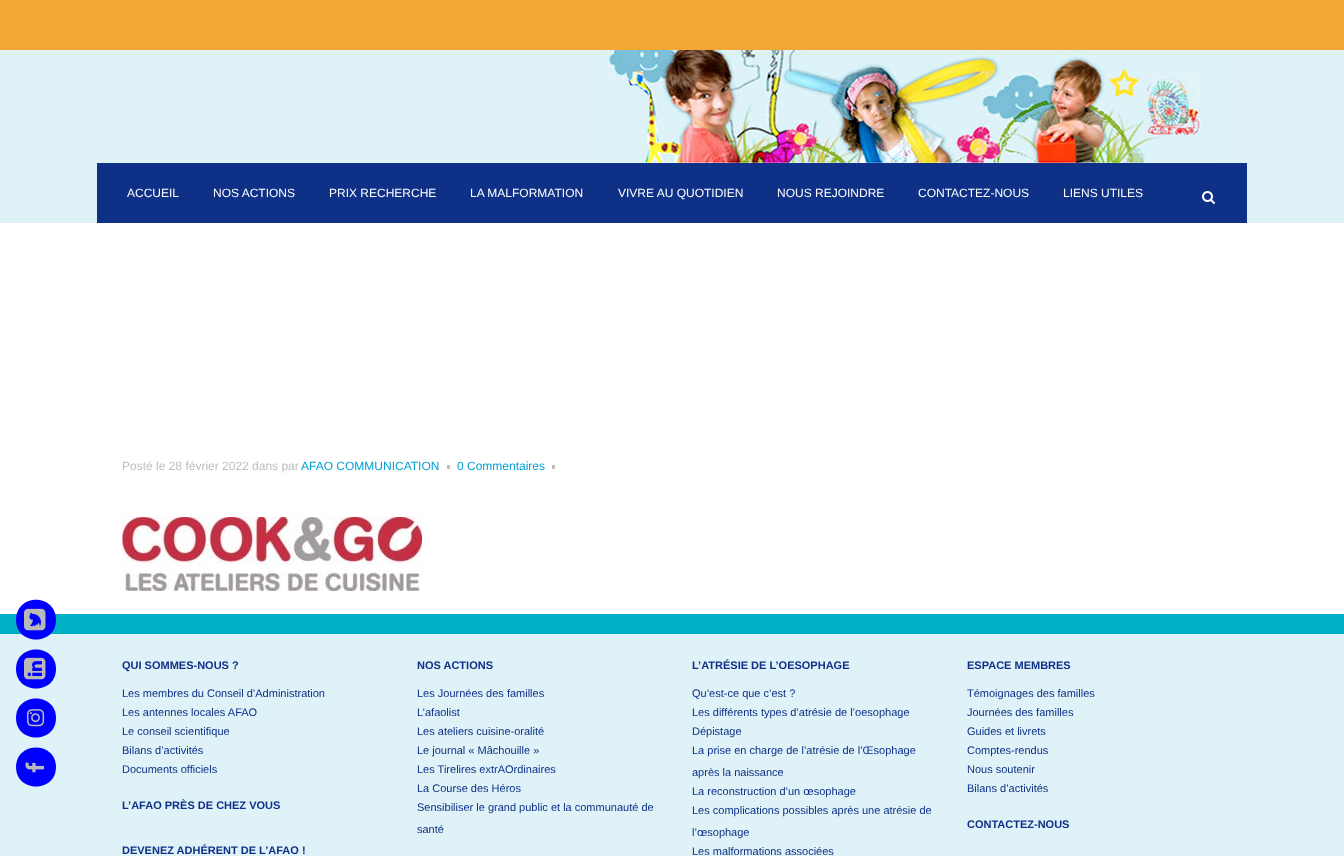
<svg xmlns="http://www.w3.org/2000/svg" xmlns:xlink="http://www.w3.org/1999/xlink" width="1344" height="856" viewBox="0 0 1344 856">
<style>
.cls-1{font:12px Liberation Sans;fill:#ffffff}
.cls-2{font:12px Liberation Sans;fill:#bebebe}
.cls-3{font:12px Liberation Sans;fill:#00a0d5}
.cls-4{font:bold 11px Liberation Sans;fill:#0e3087}
.cls-5{font:11px Liberation Sans;fill:#0e3087}
</style>
<rect width="100%" height="100%" fill="#00b0c7"/>
<rect fill="#f3a634" x="0" y="0" width="1344" height="50"/>
<rect fill="#dff2f8" x="0" y="50" width="1344" height="173"/>
<image xlink:href="image0.png" x="600" y="50" width="622" height="113"/>
<rect fill="#0e3087" x="97" y="163" width="1150" height="60"/>
<image xlink:href="image1.png" x="1202" y="191" width="13" height="13"/>
<rect fill="#ffffff" x="0" y="223" width="1344" height="391"/>
<rect fill="#bebebe" x="447" y="465" width="3" height="4"/>
<rect fill="#bebebe" x="552" y="465" width="3" height="4"/>
<image xlink:href="image2.png" x="122" y="517" width="300" height="74"/>
<rect fill="#dff2f8" x="0" y="634" width="1344" height="222"/>
<path fill="#0000ff" d="M16 620C16 593 56 593 56 620C56 646 16 646 16 620Z"/>
<image xlink:href="image3.png" x="24" y="608" width="22" height="23"/>
<path fill="#0000ff" d="M16 669C16 643 56 643 56 669C56 695 16 695 16 669Z"/>
<image xlink:href="image4.png" x="24" y="657" width="22" height="23"/>
<path fill="#0000ff" d="M16 718C16 692 56 692 56 718C56 744 16 744 16 718Z"/>
<image xlink:href="image5.png" x="26" y="709" width="19" height="18"/>
<path fill="#0000ff" d="M16 767C16 741 56 741 56 767C56 793 16 793 16 767Z"/>
<image xlink:href="image6.png" x="25" y="762" width="20" height="11"/>
<text class="cls-1" x="127" y="197">ACCUEIL</text>
<text class="cls-1" x="213" y="197">NOS ACTIONS</text>
<text class="cls-1" x="329" y="197">PRIX RECHERCHE</text>
<text class="cls-1" x="470" y="197">LA MALFORMATION</text>
<text class="cls-1" x="618" y="197">VIVRE AU QUOTIDIEN</text>
<text class="cls-1" x="777" y="197">NOUS REJOINDRE</text>
<text class="cls-1" x="918" y="197">CONTACTEZ-NOUS</text>
<text class="cls-1" x="1063" y="197">LIENS UTILES</text>
<text class="cls-2" x="122" y="470">Posté le 28 février 2022 dans par</text>
<text class="cls-3" x="301" y="470">AFAO COMMUNICATION</text>
<text class="cls-3" x="457" y="470">0 Commentaires</text>
<text class="cls-4" x="122" y="669">QUI SOMMES-NOUS ?</text>
<text class="cls-5"><tspan x="122" y="697">Les membres du Conseil d’Administration</tspan><tspan x="122" y="716">Les antennes locales AFAO</tspan><tspan x="122" y="735">Le conseil scientifique</tspan><tspan x="122" y="754">Bilans d’activités</tspan><tspan x="122" y="773">Documents officiels</tspan></text>
<text class="cls-4" x="122" y="809">L’AFAO PRÈS DE CHEZ VOUS</text>
<text class="cls-4" x="122" y="854">DEVENEZ ADHÉRENT DE L’AFAO !</text>
<text class="cls-4" x="417" y="669">NOS ACTIONS</text>
<text class="cls-5"><tspan x="417" y="697">Les Journées des familles</tspan><tspan x="417" y="716">L’afaolist</tspan><tspan x="417" y="735">Les ateliers cuisine-oralité</tspan><tspan x="417" y="754">Le journal « Mâchouille »</tspan><tspan x="417" y="773">Les Tirelires extrAOrdinaires</tspan><tspan x="417" y="792">La Course des Héros</tspan><tspan x="417" y="811">Sensibiliser le grand public et la communauté de</tspan></text>
<text class="cls-5" x="417" y="833">santé</text>
<text class="cls-4" x="692" y="669">L’ATRÉSIE DE L’OESOPHAGE</text>
<text class="cls-5"><tspan x="692" y="697">Qu’est-ce que c’est ?</tspan><tspan x="692" y="716">Les différents types d’atrésie de l’oesophage</tspan><tspan x="692" y="735">Dépistage</tspan><tspan x="692" y="754">La prise en charge de l’atrésie de l’Œsophage</tspan></text>
<text class="cls-5"><tspan x="692" y="776">après la naissance</tspan><tspan x="692" y="795">La reconstruction d’un œsophage</tspan><tspan x="692" y="814">Les complications possibles après une atrésie de</tspan></text>
<text class="cls-5"><tspan x="692" y="836">l’œsophage</tspan><tspan x="692" y="855">Les malformations associées</tspan></text>
<text class="cls-4" x="967" y="669">ESPACE MEMBRES</text>
<text class="cls-5"><tspan x="967" y="697">Témoignages des familles</tspan><tspan x="967" y="716">Journées des familles</tspan><tspan x="967" y="735">Guides et livrets</tspan><tspan x="967" y="754">Comptes-rendus</tspan><tspan x="967" y="773">Nous soutenir</tspan><tspan x="967" y="792">Bilans d’activités</tspan></text>
<text class="cls-4" x="967" y="828">CONTACTEZ-NOUS</text>
</svg>
